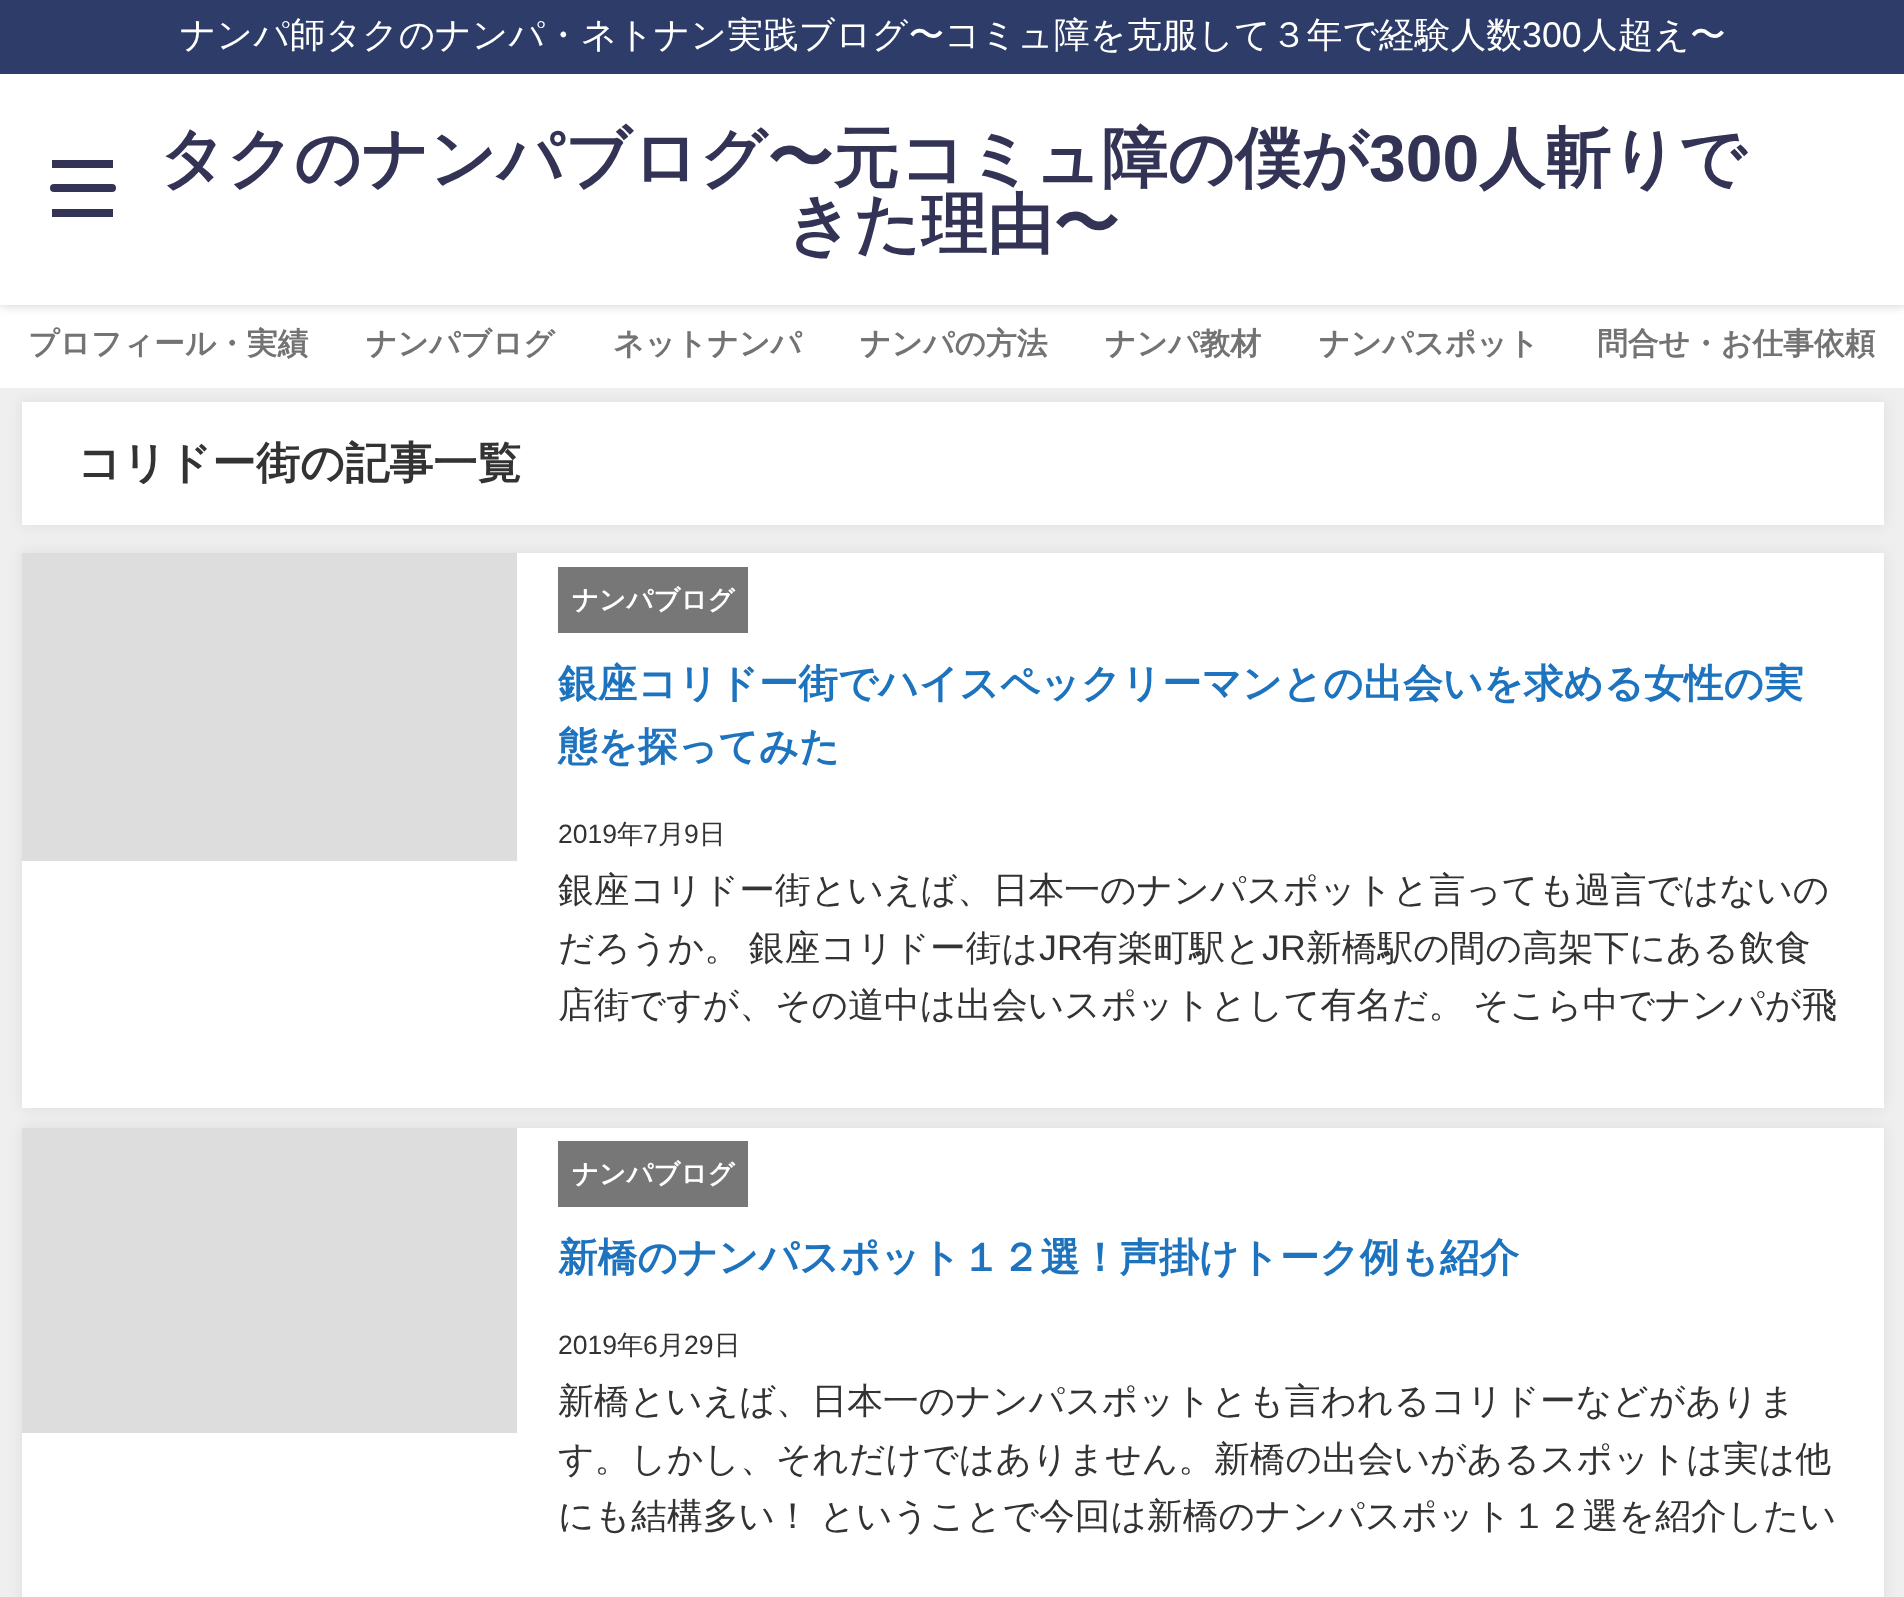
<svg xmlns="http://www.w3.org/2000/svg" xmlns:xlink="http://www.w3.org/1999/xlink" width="1904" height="1597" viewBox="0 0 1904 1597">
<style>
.cls-1{font:500 35.75px WenQuanYi Zen Hei;fill:#ffffff}
.cls-2{font:35.75px Liberation Sans;fill:#ffffff}
.cls-3{font:bold 66px WenQuanYi Zen Hei;fill:#333355}
.cls-4{font:bold 66px Liberation Sans;fill:#333355}
.cls-5{font:bold 30.75px WenQuanYi Zen Hei;fill:#737373}
.cls-6{font:bold 44px WenQuanYi Zen Hei;fill:#333333}
.cls-7{font:bold 26.5px WenQuanYi Zen Hei;fill:#ffffff}
.cls-8{font:bold 39.6px WenQuanYi Zen Hei;fill:#1e73be}
.cls-9{font:26.5px Liberation Sans;fill:#333333}
.cls-10{font:500 26.5px WenQuanYi Zen Hei;fill:#333333}
.cls-11{font:500 35.75px WenQuanYi Zen Hei;fill:#333333}
.cls-12{font:35.75px Liberation Sans;fill:#333333}
</style>
<rect width="100%" height="100%" fill="#efefef"/>
<rect fill="#ffffff" x="0" y="305" width="1904" height="83"/>
<rect fill="#000000" fill-opacity="0.2" filter="blur(5.5px)" x="0" y="0" width="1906" height="305"/>
<rect fill="#ffffff" x="0" y="74" width="1904" height="231"/>
<rect fill="#2d3c68" x="0" y="0" width="1904" height="74"/>
<rect fill="#333355" x="52" y="160" width="61" height="8"/>
<rect fill="#333355" x="50" y="184" width="66" height="8" rx="4"/>
<rect fill="#333355" x="52" y="209" width="61" height="8"/>
<rect fill="#969696" fill-opacity="0.2" filter="blur(7px)" x="22" y="402" width="1862" height="123"/>
<rect fill="#ffffff" x="22" y="402" width="1862" height="123"/>
<rect fill="#969696" fill-opacity="0.2" filter="blur(7px)" x="22" y="553" width="1862" height="555"/>
<rect fill="#ffffff" x="22" y="553" width="1862" height="555"/>
<rect fill="#dddddd" x="22" y="553" width="495" height="308"/>
<rect fill="#777777" x="558" y="567" width="190" height="66"/>
<rect fill="#969696" fill-opacity="0.2" filter="blur(7px)" x="22" y="1128" width="1862" height="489"/>
<rect fill="#ffffff" x="22" y="1128" width="1862" height="469"/>
<rect fill="#dddddd" x="22" y="1128" width="495" height="305"/>
<rect fill="#777777" x="558" y="1141" width="190" height="66"/>
<text class="cls-1" x="180" y="47">ナンパ師タクのナンパ・ネトナン実践ブログ〜コミュ障を克服して３年で経験人数</text>
<text class="cls-2" x="1522" y="47">300</text>
<text class="cls-1" x="1582" y="47">人超え〜</text>
<text class="cls-3" x="159" y="181">タクのナンパブログ〜元コミュ障の僕が</text>
<text class="cls-4" x="1369" y="181">300</text>
<text class="cls-3" x="1479" y="181">人斬りで</text>
<text class="cls-3" x="786" y="247">きた理由〜</text>
<text class="cls-5" x="28" y="354">プロフィール・実績</text>
<text class="cls-5" x="366" y="354">ナンパブログ</text>
<text class="cls-5" x="613" y="354">ネットナンパ</text>
<text class="cls-5" x="860" y="354">ナンパの方法</text>
<text class="cls-5" x="1105" y="354">ナンパ教材</text>
<text class="cls-5" x="1319" y="354">ナンパスポット</text>
<text class="cls-5" x="1597" y="354">問合せ・お仕事依頼</text>
<text class="cls-6" x="77" y="478">コリドー街の記事一覧</text>
<text class="cls-7" x="572" y="609">ナンパブログ</text>
<text class="cls-8"><tspan x="558" y="697">銀座コリドー街でハイスペックリーマンとの出会いを求める女性の実</tspan><tspan x="558" y="760">態を探ってみた</tspan></text>
<text class="cls-9" x="558" y="843">2019</text>
<text class="cls-10" x="617" y="843">年</text>
<text class="cls-9" x="643" y="843">7</text>
<text class="cls-10" x="658" y="843">月</text>
<text class="cls-9" x="684" y="843">9</text>
<text class="cls-10" x="699" y="843">日</text>
<text class="cls-11"><tspan x="558" y="902">銀座コリドー街といえば、日本一のナンパスポットと言っても過言ではないの</tspan><tspan x="558" y="960" word-spacing="-2">だろうか。 銀座コリドー街は</tspan></text>
<text class="cls-12" x="1039" y="960">JR</text>
<text class="cls-11" x="1082" y="960">有楽町駅と</text>
<text class="cls-12" x="1262" y="960">JR</text>
<text class="cls-11" x="1306" y="960">新橋駅の間の高架下にある飲食</text>
<text class="cls-11" x="558" y="1017" word-spacing="-2">店街ですが、その道中は出会いスポットとして有名だ。 そこら中でナンパが飛</text>
<text class="cls-7" x="572" y="1183">ナンパブログ</text>
<text class="cls-8" x="558" y="1271">新橋のナンパスポット１２選！声掛けトーク例も紹介</text>
<text class="cls-9" x="558" y="1354">2019</text>
<text class="cls-10" x="617" y="1354">年</text>
<text class="cls-9" x="643" y="1354">6</text>
<text class="cls-10" x="658" y="1354">月</text>
<text class="cls-9" x="684" y="1354">29</text>
<text class="cls-10" x="714" y="1354">日</text>
<text class="cls-11"><tspan x="558" y="1413">新橋といえば、日本一のナンパスポットとも言われるコリドーなどがありま</tspan><tspan x="558" y="1471">す。しかし、それだけではありません。新橋の出会いがあるスポットは実は他</tspan><tspan x="558" y="1528" word-spacing="-2">にも結構多い！ ということで今回は新橋のナンパスポット１２選を紹介したい</tspan></text>
</svg>
